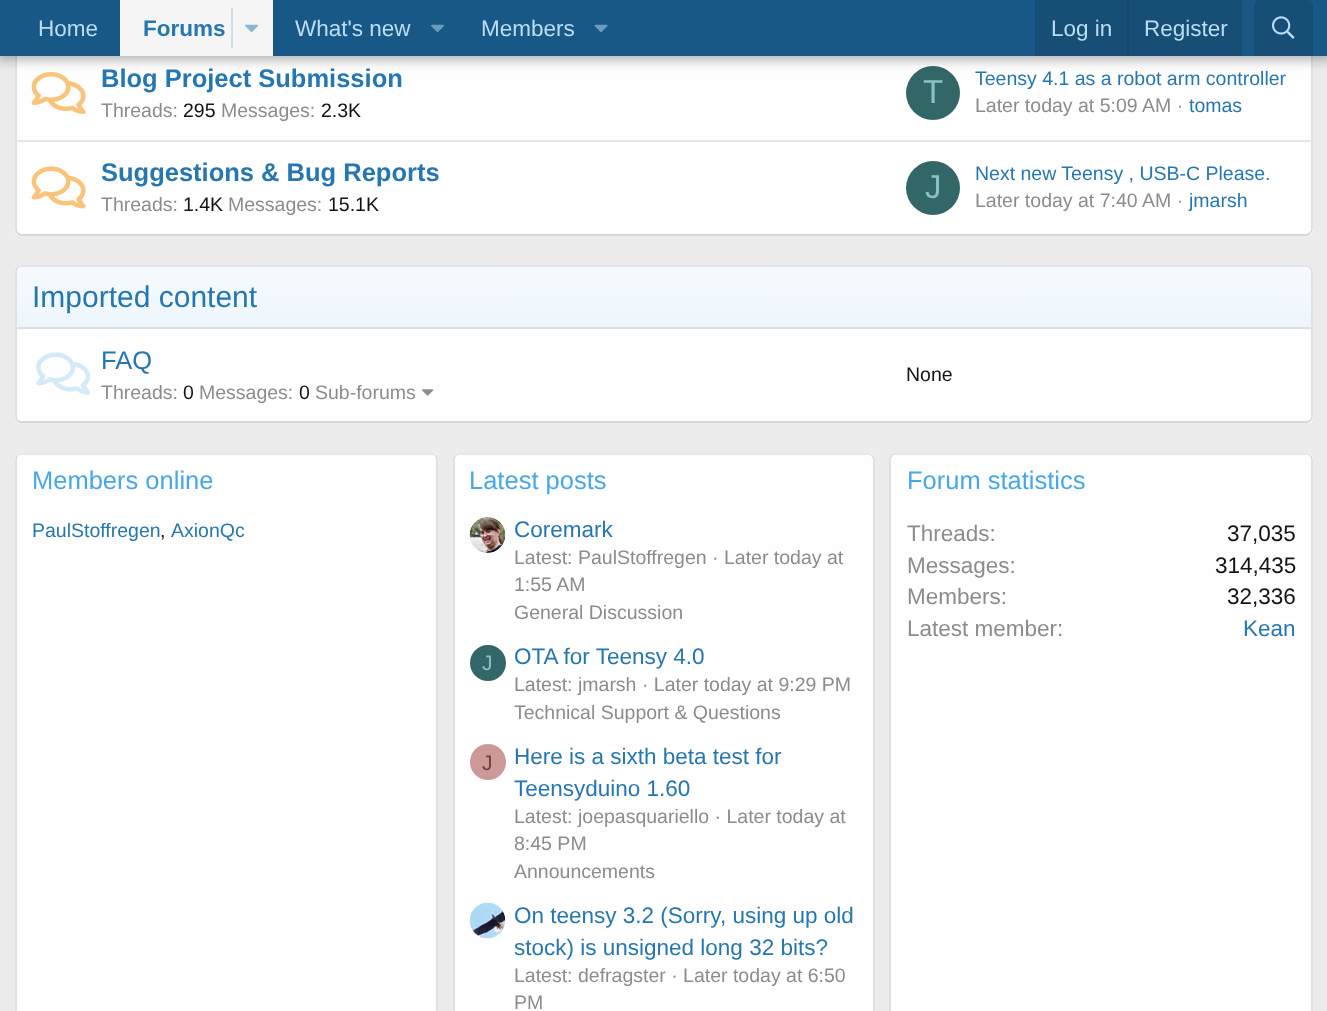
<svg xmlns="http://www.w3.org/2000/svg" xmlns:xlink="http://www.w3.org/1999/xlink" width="1327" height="1011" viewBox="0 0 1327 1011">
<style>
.cls-1{font:22.5px Liberation Sans;fill:#bcdef5}
.cls-2{font:bold 22.5px Liberation Sans;fill:#2577b1}
.cls-3{font:bold 25.5px Liberation Sans;fill:#2577b1}
.cls-4{font:19.5px Liberation Sans;fill:#8c8c8c}
.cls-5{font:19.5px Liberation Sans;fill:#141414}
.cls-6{font:33px Liberation Sans;fill:#88c3c3}
.cls-7{font:19.5px Liberation Sans;fill:#2577b1}
.cls-8{font:30px Liberation Sans;fill:#2577b1}
.cls-9{font:25.5px Liberation Sans;fill:#2577b1}
.cls-10{font:25.5px Liberation Sans;fill:#47a7eb}
.cls-11{font:22.5px Liberation Sans;fill:#2577b1}
.cls-12{font:21px Liberation Sans;fill:#88c3c3}
.cls-13{font:21px Liberation Sans;fill:#773c3c}
.cls-14{font:22.5px Liberation Sans;fill:#8c8c8c}
.cls-15{font:22.5px Liberation Sans;fill:#141414}
</style>
<defs>
<linearGradient id="g1" gradientUnits="userSpaceOnUse" x1="664" y1="327" x2="664" y2="267"><stop offset="0" stop-color="#edf6fd"/><stop offset="1" stop-color="#f6fafe"/></linearGradient>
</defs>
<rect width="100%" height="100%" fill="#ececec"/>
<rect fill="#fefefe" x="15" y="-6" width="1298" height="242" rx="6"/>
<path fill="none" stroke="#d8d8d8" stroke-width="1.5" d="M1310-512C1311-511 1312-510 1312-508.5V229.5C1312 231 1311 232 1310 233"/>
<path fill="none" stroke="#cbcbcb" stroke-width="1.5" d="M1310 233C1309 234 1308 235 1306.5 235H21C19.5 235 18.5 234 17.5 233"/>
<path fill="none" stroke="#d8d8d8" stroke-width="1.5" d="M17.5 233C16.5 232 16 231 16 229.5V-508.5C16-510 16.5-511 17.5-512"/>
<image xlink:href="image4.png" x="31" y="72" width="55" height="42"/>
<circle fill="#336666" cx="933" cy="93" r="27"/>
<rect fill="#000000" fill-opacity="0.3" filter="blur(6px)" x="-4" y="-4" width="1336" height="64"/>
<rect fill="#185886" x="0" y="0" width="1327" height="56"/>
<rect fill="#f5f5f5" x="120" y="0" width="153" height="56"/>
<rect fill="#d1dfe9" x="231" y="8" width="2" height="40"/>
<image xlink:href="image0.png" x="245" y="24" width="13" height="9"/>
<image xlink:href="image1.png" x="431" y="24" width="13" height="9"/>
<image xlink:href="image2.png" x="594" y="24" width="14" height="8"/>
<rect fill="#174e75" x="1035" y="0" width="207" height="56"/>
<rect fill="#174566" x="1127" y="0" width="2" height="56"/>
<path fill="#174e75" d="M1260 0H1307C1310.5 0 1313 2.5 1313 6V56H1254V6C1254 2.5 1256.5 0 1260 0Z"/>
<image xlink:href="image3.png" x="1272" y="16" width="23" height="23"/>
<rect fill="#e7e7e7" x="17" y="140" width="1294" height="2"/>
<image xlink:href="image5.png" x="31" y="166" width="55" height="43"/>
<circle fill="#336666" cx="933" cy="188" r="27"/>
<rect fill="#fefefe" x="15" y="266" width="1298" height="157" rx="6"/>
<path fill="none" stroke="#dfdfdf" stroke-width="1.5" d="M17.5 268C18.5 267 19.5 266 21 266H1306.5C1308 266 1309 267 1310 268"/>
<path fill="none" stroke="#d8d8d8" stroke-width="1.5" d="M1310 268C1311 269 1312 270 1312 271.5V417C1312 418.5 1311 419.5 1310 420.5"/>
<path fill="none" stroke="#cbcbcb" stroke-width="1.5" d="M1310 420.5C1309 421.5 1308 422 1306.5 422H21C19.5 422 18.5 421.5 17.5 420.5"/>
<path fill="none" stroke="#d8d8d8" stroke-width="1.5" d="M17.5 420.5C16.5 419.5 16 418.5 16 417V271.5C16 270 16.5 269 17.5 268"/>
<path fill="url(#g1)" d="M22 267H1306C1309 267 1311 269 1311 272V327H17V272C17 269 19 267 22 267Z"/>
<rect fill="#dfdfdf" x="17" y="327" width="1294" height="2"/>
<image xlink:href="image6.png" x="36" y="352" width="54" height="43"/>
<image xlink:href="image7.png" x="422" y="389" width="12" height="7"/>
<rect fill="#fefefe" x="15" y="453" width="423" height="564" rx="6"/>
<path fill="none" stroke="#dfdfdf" stroke-width="1.5" d="M17.5 455.5C18.5 454.5 19.5 454 21 454H432C433.5 454 434.5 454.5 435.5 455.5"/>
<path fill="none" stroke="#d8d8d8" stroke-width="1.5" d="M435.5 455.5C436.5 456.5 437 457.5 437 459V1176C437 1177.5 436.5 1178.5 435.5 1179.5"/>
<path fill="none" stroke="#d8d8d8" stroke-width="1.5" d="M17.5 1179.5C16.5 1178.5 16 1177.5 16 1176V459C16 457.5 16.5 456.5 17.5 455.5"/>
<rect fill="#fefefe" x="453" y="453" width="422" height="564" rx="6"/>
<path fill="none" stroke="#dfdfdf" stroke-width="1.5" d="M455.5 455.5C456.5 454.5 457.5 454 459 454H868.5C870 454 871 454.5 872 455.5"/>
<path fill="none" stroke="#d8d8d8" stroke-width="1.5" d="M872 455.5C873 456.5 874 457.5 874 459V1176C874 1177.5 873 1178.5 872 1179.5"/>
<path fill="none" stroke="#d8d8d8" stroke-width="1.5" d="M455.5 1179.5C454.5 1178.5 454 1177.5 454 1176V459C454 457.5 454.5 456.5 455.5 455.5"/>
<image xlink:href="image8.png" x="469" y="517" width="37" height="36"/>
<circle fill="#336666" cx="488" cy="663" r="18"/>
<circle fill="#cc9999" cx="488" cy="762" r="18"/>
<image xlink:href="image9.png" x="469" y="902" width="37" height="37"/>
<rect fill="#fefefe" x="890" y="453" width="423" height="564" rx="6"/>
<path fill="none" stroke="#dfdfdf" stroke-width="1.5" d="M892 455.5C893 454.5 894 454 895.5 454H1306.5C1308 454 1309 454.5 1310 455.5"/>
<path fill="none" stroke="#d8d8d8" stroke-width="1.5" d="M1310 455.5C1311 456.5 1312 457.5 1312 459V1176C1312 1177.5 1311 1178.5 1310 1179.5"/>
<path fill="none" stroke="#d8d8d8" stroke-width="1.5" d="M892 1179.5C891 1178.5 890 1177.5 890 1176V459C890 457.5 891 456.5 892 455.5"/>
<text class="cls-1" x="38" y="36">Home</text>
<text class="cls-2" x="143" y="36">Forums</text>
<text class="cls-1" x="295" y="36">What's new</text>
<text class="cls-1" x="481" y="36">Members</text>
<text class="cls-1" x="1051" y="36">Log in</text>
<text class="cls-1" x="1144" y="36">Register</text>
<text class="cls-3" x="101" y="87">Blog Project Submission</text>
<text class="cls-4" x="101" y="117">Threads:</text>
<text class="cls-5" x="183" y="117">295</text>
<text class="cls-4" x="221" y="117">Messages:</text>
<text class="cls-5" x="321" y="117">2.3K</text>
<text class="cls-6" x="923" y="103">T</text>
<text class="cls-7" x="975" y="85">Teensy 4.1 as a robot arm controller</text>
<text class="cls-4" x="975" y="112">Later today at 5:09 AM ·</text>
<text class="cls-7" x="1189" y="112">tomas</text>
<text class="cls-3" x="101" y="181">Suggestions &amp; Bug Reports</text>
<text class="cls-4" x="101" y="211">Threads:</text>
<text class="cls-5" x="183" y="211">1.4K</text>
<text class="cls-4" x="228" y="211">Messages:</text>
<text class="cls-5" x="328" y="211">15.1K</text>
<text class="cls-6" x="925" y="198">J</text>
<text class="cls-7" x="975" y="180">Next new Teensy , USB-C Please.</text>
<text class="cls-4" x="975" y="207">Later today at 7:40 AM ·</text>
<text class="cls-7" x="1189" y="207">jmarsh</text>
<text class="cls-8" x="32" y="307">Imported content</text>
<text class="cls-9" x="101" y="369">FAQ</text>
<text class="cls-4" x="101" y="399">Threads:</text>
<text class="cls-5" x="183" y="399">0</text>
<text class="cls-4" x="199" y="399">Messages:</text>
<text class="cls-5" x="299" y="399">0</text>
<text class="cls-4" x="315" y="399">Sub-forums</text>
<text class="cls-5" x="906" y="381">None</text>
<text class="cls-10" x="32" y="489">Members online</text>
<text class="cls-7" x="32" y="537">PaulStoffregen</text>
<text class="cls-5" x="160" y="537">,</text>
<text class="cls-7" x="171" y="537">AxionQc</text>
<text class="cls-10" x="469" y="489">Latest posts</text>
<text class="cls-11" x="514" y="537">Coremark</text>
<text class="cls-4"><tspan x="514" y="564">Latest: PaulStoffregen · Later today at</tspan><tspan x="514" y="591">1:55 AM</tspan><tspan x="514" y="619">General Discussion</tspan></text>
<text class="cls-12" x="482" y="670">J</text>
<text class="cls-11" x="514" y="664">OTA for Teensy 4.0</text>
<text class="cls-4"><tspan x="514" y="691">Latest: jmarsh · Later today at 9:29 PM</tspan><tspan x="514" y="719">Technical Support &amp; Questions</tspan></text>
<text class="cls-13" x="482" y="770">J</text>
<text class="cls-11"><tspan x="514" y="764">Here is a sixth beta test for</tspan><tspan x="514" y="796">Teensyduino 1.60</tspan></text>
<text class="cls-4"><tspan x="514" y="823">Latest: joepasquariello · Later today at</tspan><tspan x="514" y="850">8:45 PM</tspan><tspan x="514" y="878">Announcements</tspan></text>
<text class="cls-11"><tspan x="514" y="923">On teensy 3.2 (Sorry, using up old</tspan><tspan x="514" y="955">stock) is unsigned long 32 bits?</tspan></text>
<text class="cls-4"><tspan x="514" y="982">Latest: defragster · Later today at 6:50</tspan><tspan x="514" y="1009">PM</tspan></text>
<text class="cls-10" x="907" y="489">Forum statistics</text>
<text class="cls-14" x="907" y="541">Threads:</text>
<text class="cls-15" x="1227" y="541">37,035</text>
<text class="cls-14" x="907" y="573">Messages:</text>
<text class="cls-15" x="1215" y="573">314,435</text>
<text class="cls-14" x="907" y="604">Members:</text>
<text class="cls-15" x="1227" y="604">32,336</text>
<text class="cls-14" x="907" y="636">Latest member:</text>
<text class="cls-11" x="1243" y="636">Kean</text>
</svg>
